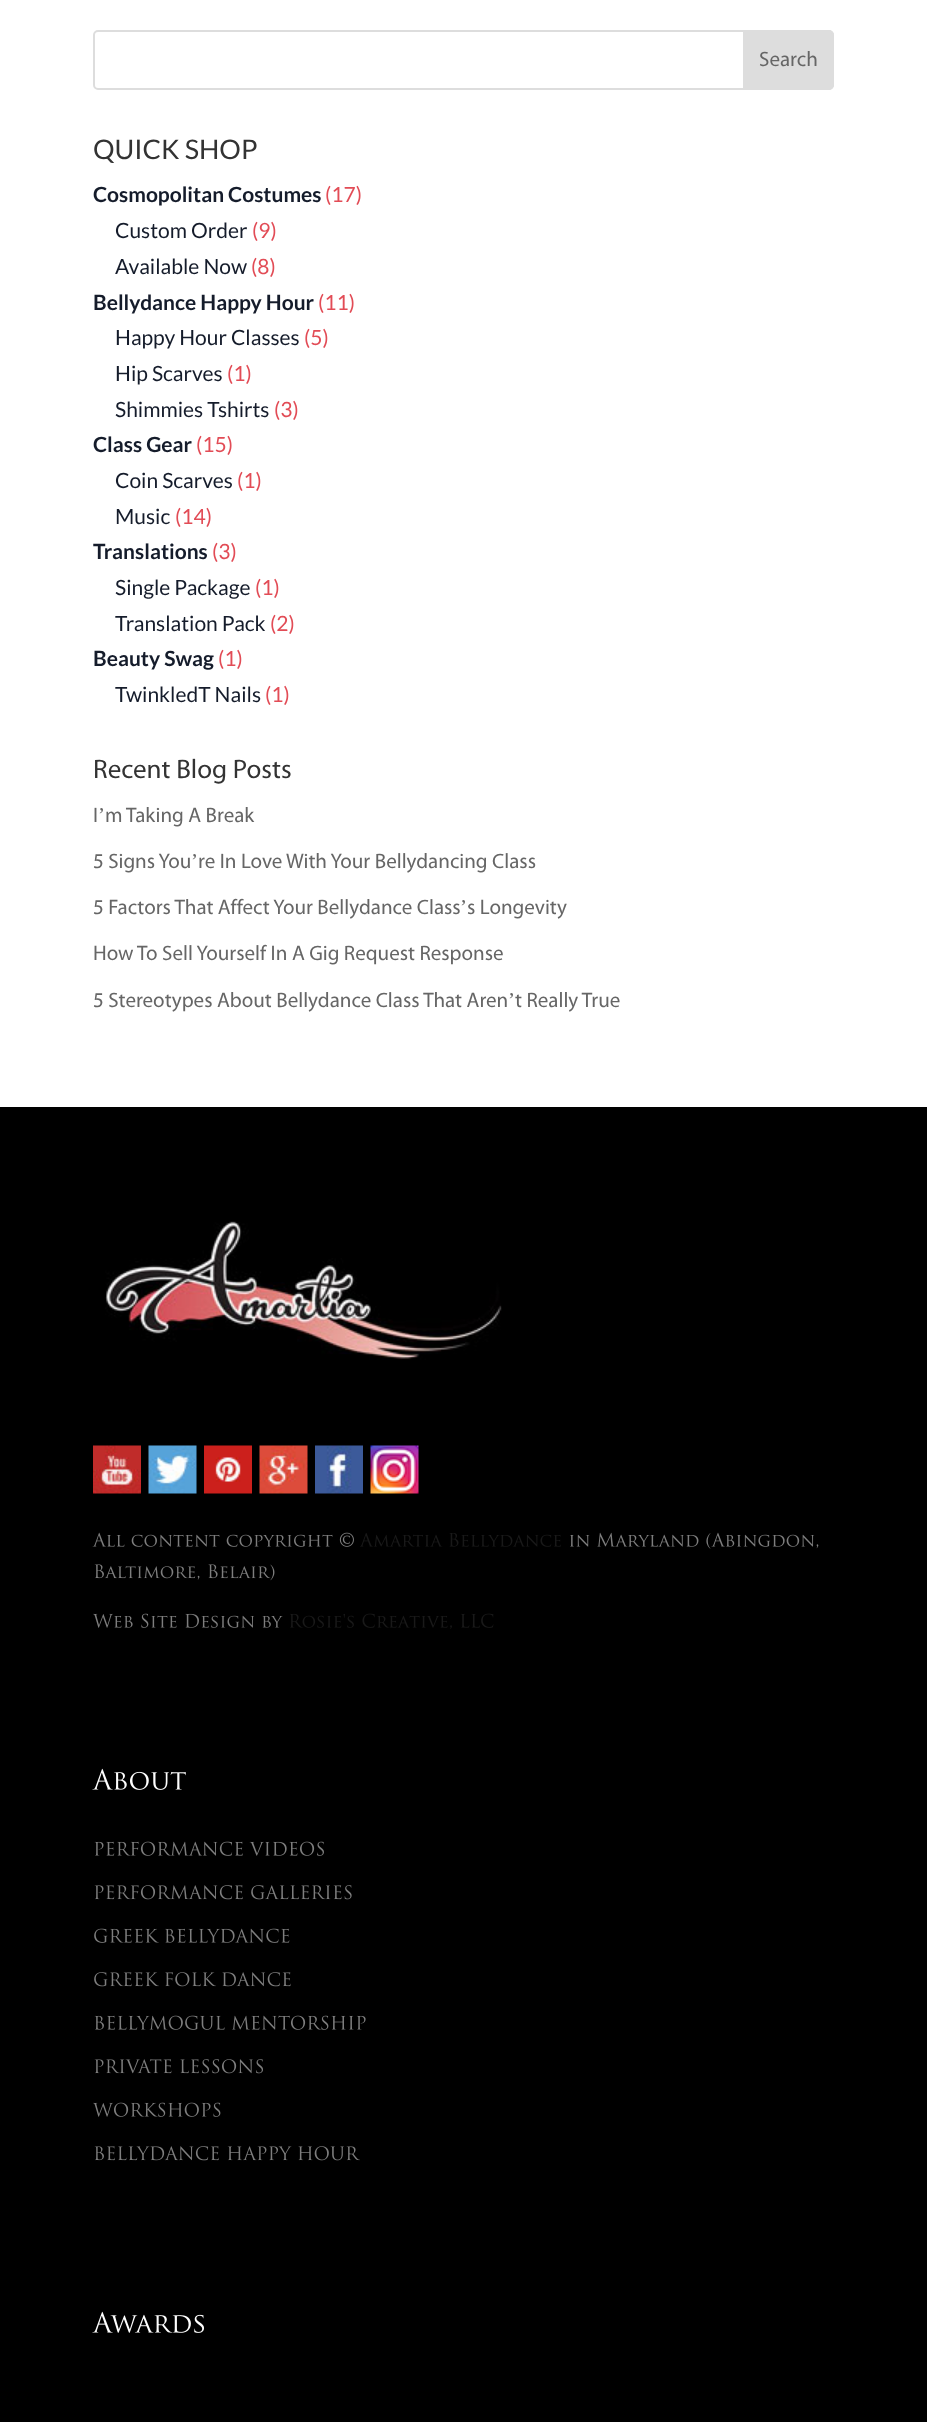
<svg xmlns="http://www.w3.org/2000/svg" xmlns:xlink="http://www.w3.org/1999/xlink" width="927" height="2422" viewBox="0 0 927 2422">
<style>
.cls-1{font:21px Myriad;fill:#666666}
.cls-2{font:27px Lato;fill:#333333}
.cls-3{font:bold 21px Lato;fill:#151c2b}
.cls-4{font:21px Lato;fill:#e24c56}
.cls-5{font:21px Lato;fill:#151c2b}
.cls-6{font:27px Myriad;fill:#333333}
.cls-7{font:21px Liberation Serif;fill:#666666}
</style>
<rect width="100%" height="100%" fill="#ffffff"/>
<rect fill="none" stroke="#dddddd" stroke-width="2" x="94" y="31" width="739" height="58" rx="4"/>
<path fill="#dddddd" stroke="#dddddd" stroke-width="2" d="M744 31H829C831 31 833 33 833 35V85C833 87 831 89 829 89H744Z"/>
<rect fill="#000000" x="0" y="1107" width="927" height="1315"/>
<image xlink:href="image0.png" x="105" y="1221" width="397" height="139"/>
<image xlink:href="image1.png" x="93" y="1445" width="48" height="49"/>
<image xlink:href="image2.png" x="148" y="1445" width="49" height="49"/>
<image xlink:href="image3.png" x="204" y="1445" width="48" height="49"/>
<image xlink:href="image4.png" x="259" y="1445" width="49" height="49"/>
<image xlink:href="image5.png" x="315" y="1445" width="48" height="49"/>
<image xlink:href="image6.png" x="370" y="1445" width="49" height="49"/>
<image xlink:href="image7.png" x="92" y="1532" width="262" height="15"/>
<image xlink:href="image8.png" x="360" y="1533" width="201" height="14"/>
<image xlink:href="image9.png" x="570" y="1532" width="249" height="17"/>
<image xlink:href="image10.png" x="94" y="1564" width="181" height="17"/>
<image xlink:href="image11.png" x="93" y="1613" width="190" height="15"/>
<image xlink:href="image12.png" x="290" y="1613" width="204" height="16"/>
<image xlink:href="image13.png" x="92" y="1768" width="94" height="22"/>
<image xlink:href="image14.png" x="94" y="1841" width="230" height="15"/>
<image xlink:href="image15.png" x="94" y="1885" width="258" height="15"/>
<image xlink:href="image16.png" x="94" y="1928" width="196" height="15"/>
<image xlink:href="image17.png" x="94" y="1972" width="197" height="15"/>
<image xlink:href="image18.png" x="94" y="2015" width="272" height="15"/>
<image xlink:href="image19.png" x="94" y="2059" width="169" height="15"/>
<image xlink:href="image20.png" x="93" y="2102" width="128" height="15"/>
<image xlink:href="image21.png" x="94" y="2146" width="266" height="15"/>
<image xlink:href="image22.png" x="92" y="2311" width="112" height="22"/>
<text class="cls-1" x="759" y="66">Search</text>
<text class="cls-2" x="93" y="159">QUICK SHOP</text>
<text class="cls-3" x="93" y="202">Cosmopolitan Costumes</text>
<text class="cls-4" x="325" y="202">(17)</text>
<text class="cls-5" x="115" y="238">Custom Order</text>
<text class="cls-4" x="252" y="238">(9)</text>
<text class="cls-5" x="115" y="274">Available Now</text>
<text class="cls-4" x="251" y="274">(8)</text>
<text class="cls-3" x="93" y="310">Bellydance Happy Hour</text>
<text class="cls-4" x="318" y="310">(11)</text>
<text class="cls-5" x="115" y="345">Happy Hour Classes</text>
<text class="cls-4" x="304" y="345">(5)</text>
<text class="cls-5" x="115" y="381">Hip Scarves</text>
<text class="cls-4" x="227" y="381">(1)</text>
<text class="cls-5" x="115" y="417">Shimmies Tshirts</text>
<text class="cls-4" x="274" y="417">(3)</text>
<text class="cls-3" x="93" y="452">Class Gear</text>
<text class="cls-4" x="196" y="452">(15)</text>
<text class="cls-5" x="115" y="488">Coin Scarves</text>
<text class="cls-4" x="237" y="488">(1)</text>
<text class="cls-5" x="115" y="524">Music</text>
<text class="cls-4" x="175" y="524">(14)</text>
<text class="cls-3" x="93" y="559">Translations</text>
<text class="cls-4" x="212" y="559">(3)</text>
<text class="cls-5" x="115" y="595">Single Package</text>
<text class="cls-4" x="255" y="595">(1)</text>
<text class="cls-5" x="115" y="631">Translation Pack</text>
<text class="cls-4" x="270" y="631">(2)</text>
<text class="cls-3" x="93" y="666">Beauty Swag</text>
<text class="cls-4" x="218" y="666">(1)</text>
<text class="cls-5" x="115" y="702">TwinkledT Nails</text>
<text class="cls-4" x="265" y="702">(1)</text>
<text class="cls-6" x="93" y="778">Recent Blog Posts</text>
<text class="cls-1" x="93" y="822">I</text>
<text class="cls-7" x="98" y="822">’</text>
<text class="cls-1" x="105" y="822">m Taking A Break</text>
<text class="cls-1" x="93" y="868">5 Signs You</text>
<text class="cls-7" x="191" y="868">’</text>
<text class="cls-1" x="198" y="868">re In Love With Your Bellydancing Class</text>
<text class="cls-1" x="93" y="914">5 Factors That Affect Your Bellydance Class</text>
<text class="cls-7" x="460" y="914">’</text>
<text class="cls-1" x="467" y="914">s Longevity</text>
<text class="cls-1" x="93" y="960">How To Sell Yourself In A Gig Request Response</text>
<text class="cls-1" x="93" y="1007">5 Stereotypes About Bellydance Class That Aren</text>
<text class="cls-7" x="508" y="1007">’</text>
<text class="cls-1" x="515" y="1007">t Really True</text>
</svg>
